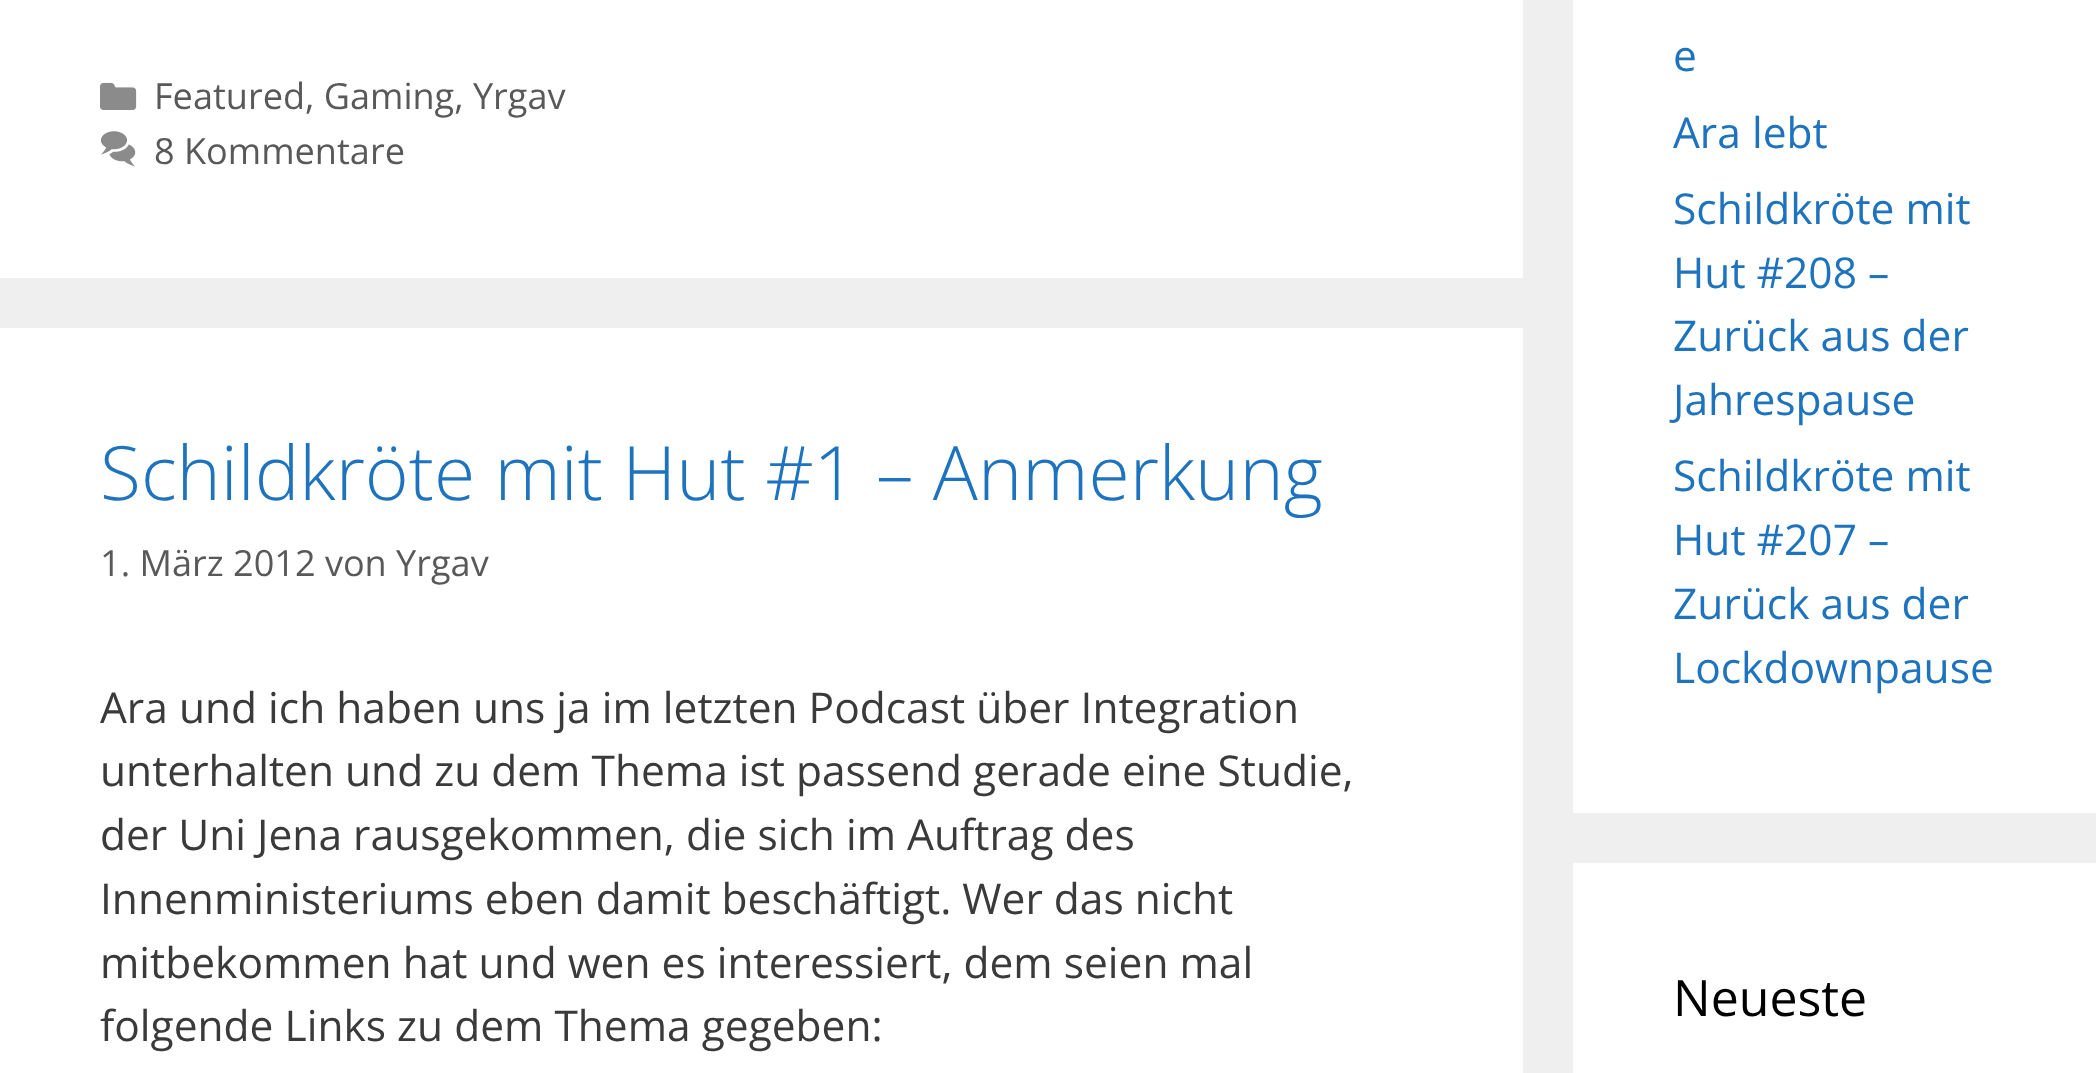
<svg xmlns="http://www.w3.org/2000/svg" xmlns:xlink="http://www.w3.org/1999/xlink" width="2096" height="1073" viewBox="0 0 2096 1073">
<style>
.cls-1{font:36.1px Open Sans;fill:#595959}
.cls-2{font:300 75px Open Sans;fill:#1e73be}
.cls-3{font:42.5px Open Sans;fill:#3a3a3a}
.cls-4{font:42.5px Open Sans;fill:#1e73be}
.cls-5{font:50px Open Sans;fill:#000000}
</style>
<rect width="100%" height="100%" fill="#efefef"/>
<rect fill="#ffffff" x="0" y="0" width="1523" height="278"/>
<image xlink:href="image0.png" x="100" y="82" width="37" height="28"/>
<image xlink:href="image1.png" x="100" y="131" width="36" height="36"/>
<rect fill="#ffffff" x="0" y="328" width="1523" height="745"/>
<rect fill="#ffffff" x="1573" y="0" width="523" height="813"/>
<rect fill="#ffffff" x="1573" y="863" width="523" height="210"/>
<text class="cls-1"><tspan x="154" y="109">Featured, Gaming, Yrgav</tspan><tspan x="154" y="164">8 Kommentare</tspan></text>
<text class="cls-2" x="100" y="500">Schildkröte mit Hut #1 – Anmerkung</text>
<text class="cls-1" x="100" y="576">1. März 2012 von Yrgav</text>
<text class="cls-3"><tspan x="100" y="723">Ara und ich haben uns ja im letzten Podcast über Integration</tspan><tspan x="100" y="786">unterhalten und zu dem Thema ist passend gerade eine Studie,</tspan><tspan x="100" y="850">der Uni Jena rausgekommen, die sich im Auftrag des</tspan><tspan x="100" y="914">Innenministeriums eben damit beschäftigt. Wer das nicht</tspan><tspan x="100" y="978">mitbekommen hat und wen es interessiert, dem seien mal</tspan><tspan x="100" y="1041">folgende Links zu dem Thema gegeben:</tspan></text>
<text class="cls-4"><tspan x="1673" y="71">e</tspan><tspan x="1673" y="148">Ara lebt</tspan><tspan x="1673" y="224">Schildkröte mit</tspan><tspan x="1673" y="288">Hut #208 –</tspan><tspan x="1673" y="351">Zurück aus der</tspan><tspan x="1673" y="415">Jahrespause</tspan><tspan x="1673" y="491">Schildkröte mit</tspan><tspan x="1673" y="555">Hut #207 –</tspan><tspan x="1673" y="619">Zurück aus der</tspan><tspan x="1673" y="683">Lockdownpause</tspan></text>
<text class="cls-5" x="1673" y="1016">Neueste</text>
</svg>
